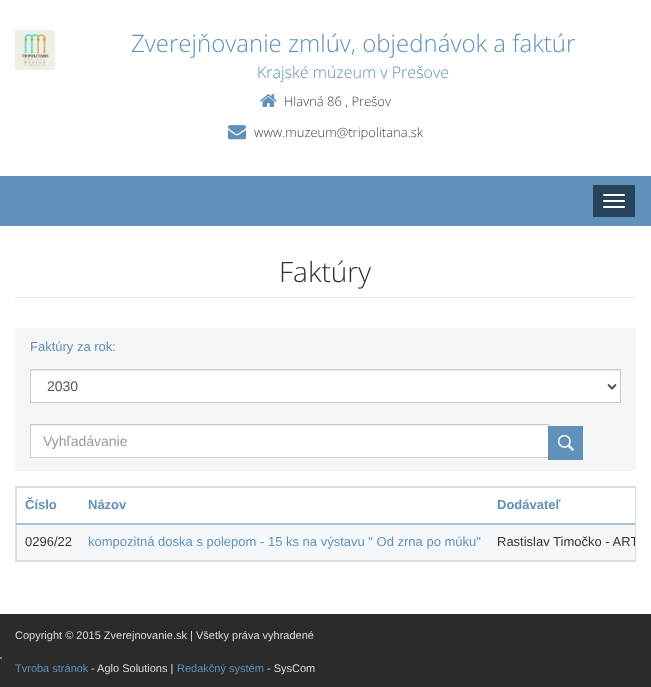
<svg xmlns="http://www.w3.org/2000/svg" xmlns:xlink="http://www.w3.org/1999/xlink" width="651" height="687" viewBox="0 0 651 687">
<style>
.cls-1{font:300 24px Open Sans;fill:#6091ba}
.cls-2{font:300 16px Open Sans;fill:#6091ba}
.cls-3{font:300 13px Open Sans;fill:#444444}
.cls-4{font:300 28px Open Sans;fill:#333333}
.cls-5{font:13px Liberation Sans;fill:#6091ba}
.cls-6{font:14px Liberation Sans;fill:#555555}
.cls-7{font:14px Liberation Sans;fill:#999999}
.cls-8{font:bold 13px Liberation Sans;fill:#6091ba}
.cls-9{font:13px Liberation Sans;fill:#333333}
.cls-10{font:11px Liberation Sans;fill:#dcdcdc}
.cls-11{font:11px Liberation Sans;fill:#6091ba}
</style>
<defs>
<clipPath id="clip1"><rect x="16" y="487" width="619" height="74"/></clipPath>
</defs>
<rect width="100%" height="100%" fill="#ffffff"/>
<image xlink:href="image0.png" x="15" y="30" width="40" height="40"/>
<image xlink:href="image1.png" x="260" y="94" width="17" height="13"/>
<image xlink:href="image2.png" x="228" y="125" width="18" height="15"/>
<rect fill="#6091ba" x="0" y="176" width="651" height="50"/>
<rect fill="#27435a" x="593" y="185" width="42" height="32"/>
<rect fill="#ffffff" x="603" y="194" width="22" height="2" rx="1"/>
<rect fill="#ffffff" x="603" y="200" width="22" height="2" rx="1"/>
<rect fill="#ffffff" x="603" y="206" width="22" height="2" rx="1"/>
<rect fill="#e8e8e8" x="15" y="297" width="621" height="1"/>
<rect fill="#f5f5f5" x="15" y="328" width="621" height="143"/>
<rect fill="#ffffff" x="31" y="371" width="589" height="31"/>
<rect fill="#ececec" x="31" y="370" width="589" height="1"/>
<rect fill="none" stroke="#cccccc" x="30.5" y="369.5" width="590" height="33"/>
<path fill="none" stroke="#555555" stroke-width="2" d="M608 384.5L612 388.5L616 384.5"/>
<rect fill="#ffffff" x="31" y="426" width="517" height="31"/>
<rect fill="#ececec" x="31" y="425" width="518" height="1"/>
<rect fill="none" stroke="#cccccc" x="30.5" y="424.5" width="519" height="33"/>
<rect fill="#6091ba" x="548" y="426" width="35" height="34"/>
<image xlink:href="image3.png" x="558" y="435" width="16" height="16"/>
<rect fill="none" stroke="#dddddd" x="15.5" y="486.5" width="620" height="75"/>
<rect fill="#dddddd" x="16" y="487" width="619" height="1"/>
<rect fill="#dddddd" x="16" y="560" width="619" height="1"/>
<rect fill="#dddddd" x="16" y="487" width="1" height="74"/>
<rect fill="#a7c2d9" x="16" y="523" width="619" height="2"/>
<rect fill="#f5f8fb" x="17" y="525" width="618" height="35"/>
<rect fill="#2b2b2b" x="0" y="614" width="651" height="73"/>
<rect fill="#6091ba" x="0" y="657" width="2" height="2"/>
<text class="cls-1" x="131" y="52">Zverejňovanie zmlúv, objednávok a faktúr</text>
<text class="cls-2" x="257" y="78">Krajské múzeum v Prešove</text>
<text class="cls-3" x="284" y="106">Hlavná 86 , Prešov</text>
<text class="cls-3" x="254" y="137">www.muzeum@tripolitana.sk</text>
<text class="cls-4" x="279" y="282">Faktúry</text>
<text class="cls-5" x="30" y="351">Faktúry za rok:</text>
<text class="cls-6" x="47" y="391">2030</text>
<text class="cls-7" x="43" y="446">Vyhľadávanie</text>
<text class="cls-8" x="25" y="509">Číslo</text>
<text class="cls-8" x="88" y="509">Názov</text>
<text class="cls-8" x="497" y="509">Dodávateľ</text>
<text class="cls-9" x="25" y="546">0296/22</text>
<text class="cls-5" x="88" y="546">kompozitná doska s polepom - 15 ks na výstavu " Od zrna po múku"</text>
<g clip-path="url(#clip1)">
<text class="cls-9" x="497" y="546">Rastislav Timočko - ART</text>
</g>
<text class="cls-10" x="15" y="639">Copyright © 2015 Zverejnovanie.sk | Všetky práva vyhradené</text>
<text class="cls-11" x="15" y="672">Tvroba stránok</text>
<text class="cls-10" x="91" y="672">- Aglo Solutions |</text>
<text class="cls-11" x="177" y="672">Redakčný systém</text>
<text class="cls-10" x="267" y="672">- SysCom</text>
</svg>
